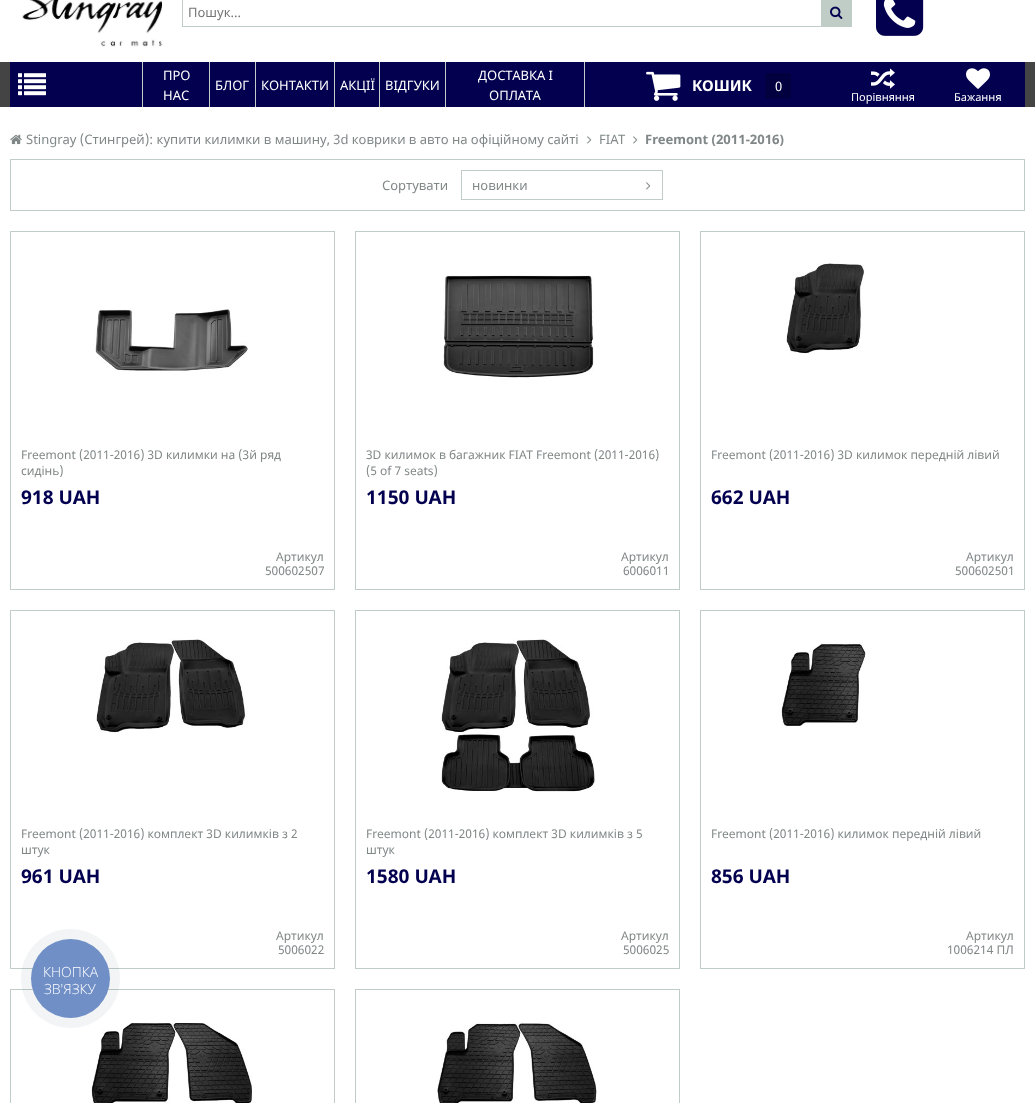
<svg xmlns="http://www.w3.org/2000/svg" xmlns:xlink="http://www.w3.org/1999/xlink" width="1035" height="1103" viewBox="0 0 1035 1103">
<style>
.cls-1{font:13px Noto Sans;fill:#757575}
.cls-2{font:13px Noto Sans;fill:#ffffff}
.cls-3{font:bold 15px Noto Sans;fill:#ffffff}
.cls-4{font:11px Noto Sans;fill:#ffffff}
.cls-5{font:13px Noto Sans;fill:#808787}
.cls-6{font:bold 13px Noto Sans;fill:#808787}
.cls-7{font:12px Noto Sans;fill:#808787}
.cls-8{font:bold 19px Noto Sans;fill:#03004f}
.cls-9{font:300 14px Open Sans;fill:#ffffff}
</style>
<rect width="100%" height="100%" fill="#ffffff"/>
<image xlink:href="image0.png" x="22" y="0" width="140" height="47"/>
<rect fill="none" stroke="#c0ccc6" x="182.5" y="-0.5" width="669" height="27"/>
<rect fill="#c0ccc6" x="821" y="0" width="30" height="26"/>
<image xlink:href="image1.png" x="830" y="6" width="13" height="13"/>
<image xlink:href="image2.png" x="876" y="0" width="48" height="36"/>
<rect fill="#444444" x="0" y="62" width="1035" height="45"/>
<rect fill="#03004f" x="10" y="62" width="1015" height="45"/>
<image xlink:href="image3.png" x="18" y="73" width="28" height="23"/>
<rect fill="#c0ccc6" x="209" y="62" width="1" height="45"/>
<rect fill="#c0ccc6" x="142" y="62" width="1" height="45"/>
<rect fill="#c0ccc6" x="255" y="62" width="1" height="45"/>
<rect fill="#c0ccc6" x="334" y="62" width="1" height="45"/>
<rect fill="#c0ccc6" x="379" y="62" width="1" height="45"/>
<rect fill="#c0ccc6" x="445" y="62" width="1" height="45"/>
<rect fill="#c0ccc6" x="584" y="62" width="1" height="45"/>
<image xlink:href="image4.png" x="646" y="71" width="35" height="30"/>
<rect fill="#02003f" x="765" y="73" width="26" height="26" rx="3"/>
<image xlink:href="image5.png" x="871" y="68" width="24" height="21"/>
<image xlink:href="image6.png" x="966" y="68" width="24" height="21"/>
<image xlink:href="image7.png" x="10" y="134" width="12" height="11"/>
<image xlink:href="image8.png" x="587" y="136" width="5" height="8"/>
<image xlink:href="image8.png" x="633" y="136" width="5" height="8"/>
<rect fill="none" stroke="#c0ccc6" x="10.5" y="159.5" width="1014" height="51"/>
<rect fill="none" stroke="#c0ccc6" x="461.5" y="170.5" width="201" height="29"/>
<image xlink:href="image8.png" x="646" y="182" width="5" height="8"/>
<rect fill="none" stroke="#c0ccc6" x="10.5" y="231.5" width="324" height="358"/>
<image xlink:href="image9.png" x="95" y="309" width="153" height="63"/>
<rect fill="none" stroke="#c0ccc6" x="355.5" y="231.5" width="324" height="358"/>
<image xlink:href="image10.png" x="443" y="275" width="151" height="103"/>
<rect fill="none" stroke="#c0ccc6" x="700.5" y="231.5" width="324" height="358"/>
<image xlink:href="image11.png" x="786" y="263" width="79" height="91"/>
<rect fill="none" stroke="#c0ccc6" x="10.5" y="610.5" width="324" height="358"/>
<image xlink:href="image12.png" x="96" y="639" width="152" height="94"/>
<rect fill="none" stroke="#c0ccc6" x="355.5" y="610.5" width="324" height="358"/>
<image xlink:href="image13.png" x="441" y="639" width="154" height="153"/>
<rect fill="none" stroke="#c0ccc6" x="700.5" y="610.5" width="324" height="358"/>
<image xlink:href="image14.png" x="781" y="642" width="85" height="84"/>
<rect fill="none" stroke="#c0ccc6" x="10.5" y="989.5" width="324" height="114"/>
<image xlink:href="image15.png" x="91" y="1022" width="162" height="81"/>
<rect fill="none" stroke="#c0ccc6" x="355.5" y="989.5" width="324" height="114"/>
<image xlink:href="image16.png" x="437" y="1022" width="160" height="81"/>
<circle fill="#2a405d" fill-opacity="0.06" cx="70.5" cy="978.5" r="49.5"/>
<circle fill="#708fc6" cx="70.5" cy="978.5" r="39.5"/>
<text class="cls-1" x="188" y="17">Пошук...</text>
<text class="cls-2"><tspan x="163" y="80">ПРО</tspan><tspan x="163" y="100">НАС</tspan></text>
<text class="cls-2" x="215" y="90">БЛОГ</text>
<text class="cls-2" x="261" y="90">КОНТАКТИ</text>
<text class="cls-2" x="340" y="90">АКЦІЇ</text>
<text class="cls-2" x="385" y="90">ВІДГУКИ</text>
<text class="cls-2" x="478" y="80">ДОСТАВКА І</text>
<text class="cls-2" x="489" y="100">ОПЛАТА</text>
<text class="cls-3" x="692" y="91">КОШИК</text>
<text class="cls-2" x="775" y="91">0</text>
<text class="cls-4" x="851" y="101">Порівняння</text>
<text class="cls-4" x="954" y="101">Бажання</text>
<text class="cls-5" x="26" y="144">Stingray (Стингрей): купити килимки в машину, 3d коврики в авто на офіційному сайті</text>
<text class="cls-5" x="599" y="144">FIAT</text>
<text class="cls-6" x="645" y="144">Freemont (2011-2016)</text>
<text class="cls-5" x="382" y="190">Сортувати</text>
<text class="cls-5" x="472" y="190">новинки</text>
<text class="cls-7"><tspan x="21" y="459">Freemont (2011-2016) 3D килимки на (3й ряд</tspan><tspan x="21" y="475">сидінь)</tspan></text>
<text class="cls-8" x="21" y="504">918 UAH</text>
<text class="cls-7" x="276" y="561">Артикул</text>
<text class="cls-7" x="265" y="575">500602507</text>
<text class="cls-7"><tspan x="366" y="459">3D килимок в багажник FIAT Freemont (2011-2016)</tspan><tspan x="366" y="475">(5 of 7 seats)</tspan></text>
<text class="cls-8" x="366" y="504">1150 UAH</text>
<text class="cls-7" x="621" y="561">Артикул</text>
<text class="cls-7" x="623" y="575">6006011</text>
<text class="cls-7" x="711" y="459">Freemont (2011-2016) 3D килимок передній лівий</text>
<text class="cls-8" x="711" y="504">662 UAH</text>
<text class="cls-7" x="966" y="561">Артикул</text>
<text class="cls-7" x="955" y="575">500602501</text>
<text class="cls-7"><tspan x="21" y="838">Freemont (2011-2016) комплект 3D килимків з 2</tspan><tspan x="21" y="854">штук</tspan></text>
<text class="cls-8" x="21" y="883">961 UAH</text>
<text class="cls-7" x="276" y="940">Артикул</text>
<text class="cls-7" x="278" y="954">5006022</text>
<text class="cls-7"><tspan x="366" y="838">Freemont (2011-2016) комплект 3D килимків з 5</tspan><tspan x="366" y="854">штук</tspan></text>
<text class="cls-8" x="366" y="883">1580 UAH</text>
<text class="cls-7" x="621" y="940">Артикул</text>
<text class="cls-7" x="623" y="954">5006025</text>
<text class="cls-7" x="711" y="838">Freemont (2011-2016) килимок передній лівий</text>
<text class="cls-8" x="711" y="883">856 UAH</text>
<text class="cls-7" x="966" y="940">Артикул</text>
<text class="cls-7" x="947" y="954">1006214 ПЛ</text>
<text class="cls-9" x="43" y="977">КНОПКА</text>
<text class="cls-9" x="44" y="994">ЗВ'ЯЗКУ</text>
</svg>
